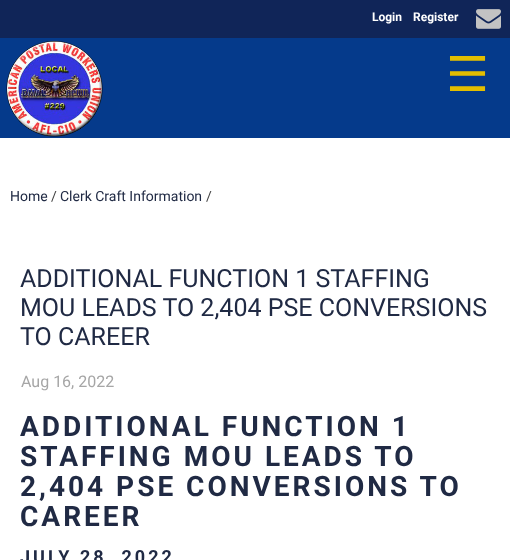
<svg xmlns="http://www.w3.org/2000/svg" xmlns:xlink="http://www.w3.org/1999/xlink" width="510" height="560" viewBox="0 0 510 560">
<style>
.cls-1{font:bold 12px Roboto;fill:#ffffff}
.cls-2{font:48px DejaVu Sans;fill:#e3be00}
.cls-3{font:14px Roboto;fill:#202a44}
.cls-4{font:14px Roboto;fill:#404040}
.cls-5{font:25px Roboto;fill:#202a44}
.cls-6{font:16px Roboto;fill:#a6a6a6}
.cls-7{font:bold 28px Roboto;letter-spacing:3px;fill:#202a44}
.cls-8{font:bold 18px Roboto;letter-spacing:3px;fill:#202a44}
</style>
<rect width="100%" height="100%" fill="#ffffff"/>
<rect fill="#102558" x="0" y="0" width="510" height="38"/>
<image xlink:href="image0.png" x="476" y="9" width="25" height="20"/>
<rect fill="#053a8b" x="0" y="38" width="510" height="100"/>
<image xlink:href="image1.png" x="6" y="41" width="97" height="96"/>
<text class="cls-1" x="372" y="21">Login</text>
<text class="cls-1" x="413" y="21">Register</text>
<text class="cls-2" x="446" y="91">☰</text>
<text class="cls-3" x="10" y="201">Home</text>
<text class="cls-4" x="51" y="201">/</text>
<text class="cls-3" x="60" y="201">Clerk Craft Information</text>
<text class="cls-4" x="206" y="201">/</text>
<text class="cls-5"><tspan x="20" y="287">ADDITIONAL FUNCTION 1 STAFFING</tspan><tspan x="20" y="316">MOU LEADS TO 2,404 PSE CONVERSIONS</tspan><tspan x="20" y="345">TO CAREER</tspan></text>
<text class="cls-6" x="21" y="387">Aug 16, 2022</text>
<text class="cls-7"><tspan x="20" y="436">ADDITIONAL FUNCTION 1</tspan><tspan x="20" y="466">STAFFING MOU LEADS TO</tspan><tspan x="20" y="496">2,404 PSE CONVERSIONS TO</tspan><tspan x="20" y="526">CAREER</tspan></text>
<text class="cls-8" x="20" y="563">JULY 28, 2022</text>
</svg>
